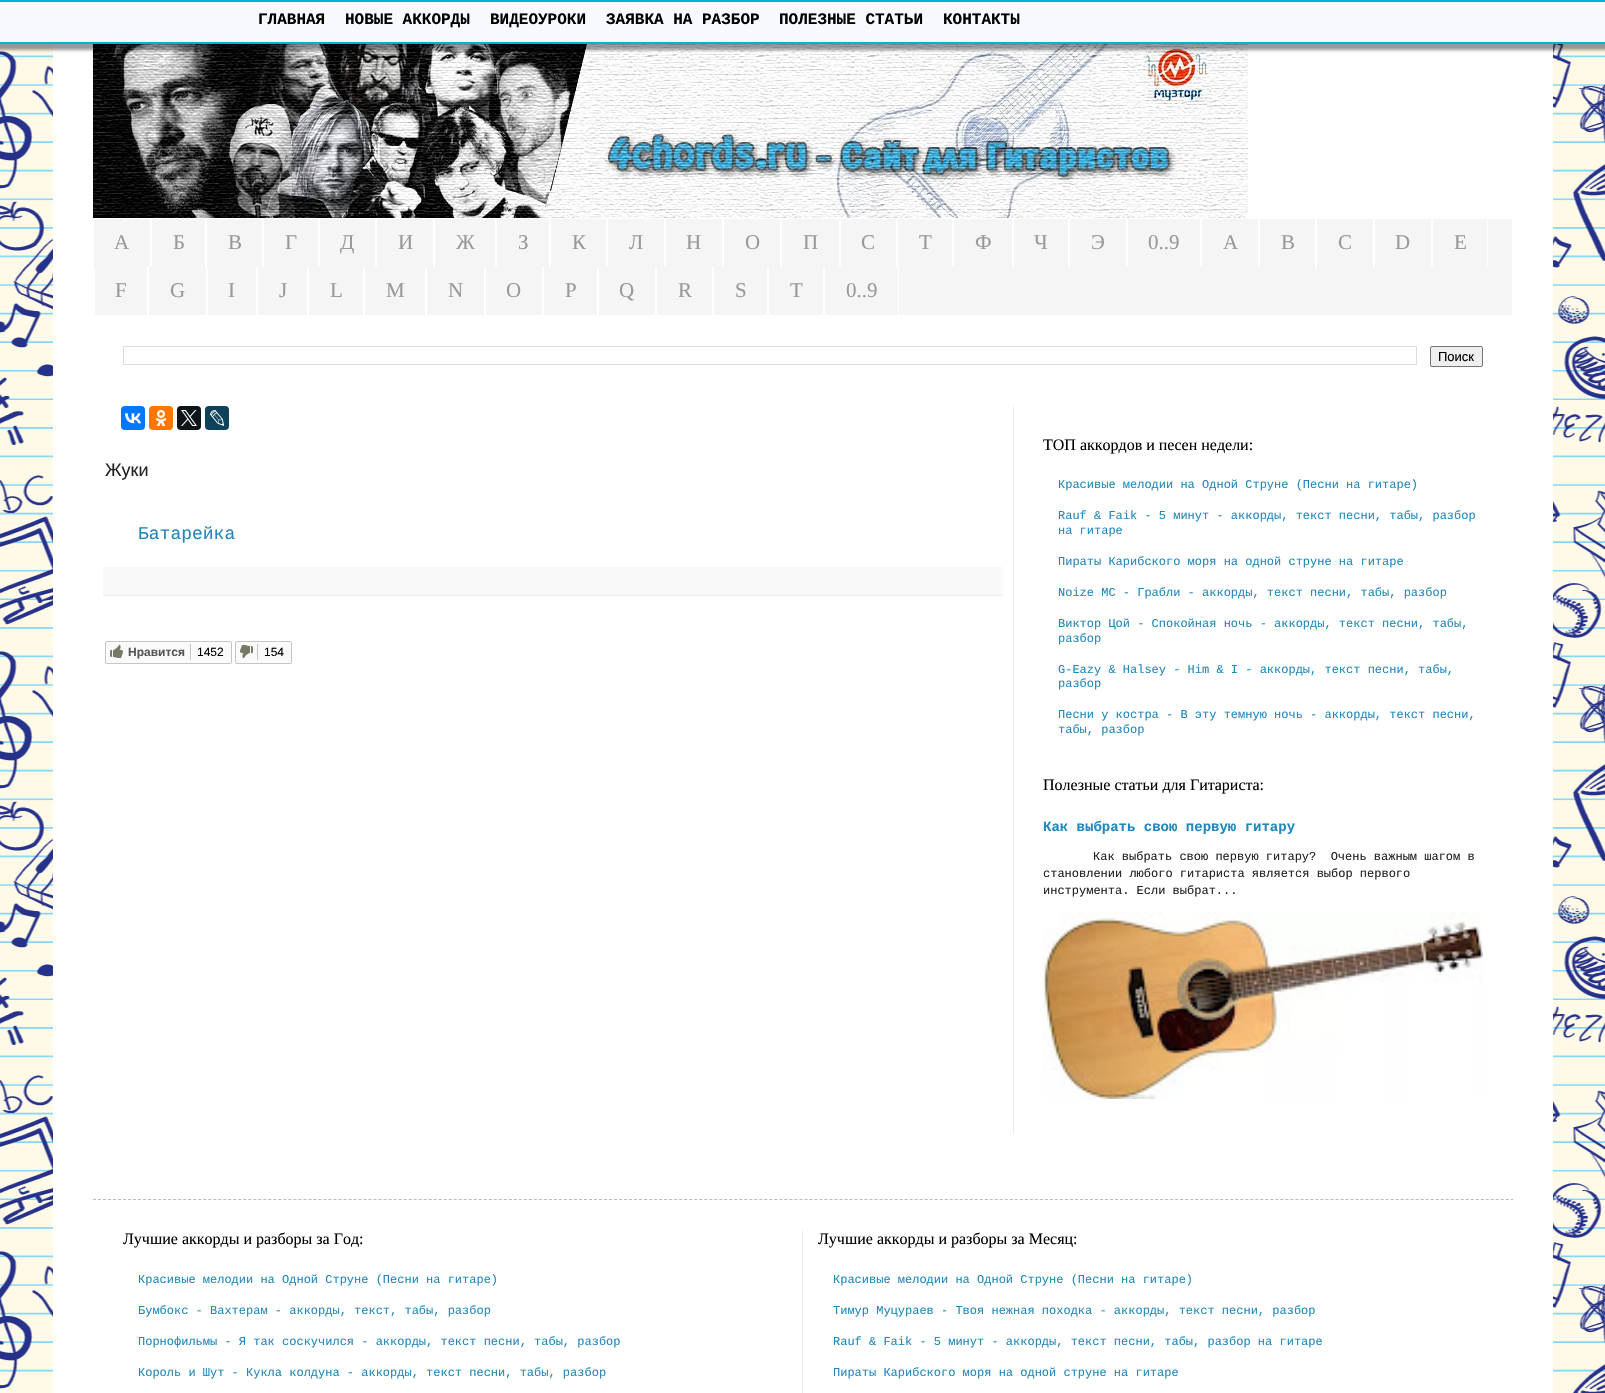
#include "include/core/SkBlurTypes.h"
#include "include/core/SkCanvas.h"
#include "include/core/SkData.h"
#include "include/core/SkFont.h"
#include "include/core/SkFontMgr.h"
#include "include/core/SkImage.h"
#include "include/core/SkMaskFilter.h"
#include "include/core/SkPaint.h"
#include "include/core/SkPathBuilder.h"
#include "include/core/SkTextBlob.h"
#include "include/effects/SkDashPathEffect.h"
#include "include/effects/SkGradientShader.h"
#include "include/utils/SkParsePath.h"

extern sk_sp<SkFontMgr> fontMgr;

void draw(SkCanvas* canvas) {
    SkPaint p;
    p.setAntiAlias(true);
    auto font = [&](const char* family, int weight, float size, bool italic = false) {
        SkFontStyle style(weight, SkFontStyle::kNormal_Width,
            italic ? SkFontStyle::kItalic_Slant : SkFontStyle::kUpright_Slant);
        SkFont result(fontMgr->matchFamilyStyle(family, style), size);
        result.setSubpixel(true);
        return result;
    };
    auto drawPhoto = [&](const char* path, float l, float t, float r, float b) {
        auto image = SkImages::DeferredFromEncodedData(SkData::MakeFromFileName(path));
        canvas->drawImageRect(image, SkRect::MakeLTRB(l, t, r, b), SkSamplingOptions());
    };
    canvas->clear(0xFFFFFFFF);
    drawPhoto("media/1.png", 0, 44, 1605, 1393);
    p.setColor(0xFFFFFFFF);
    canvas->drawRect(SkRect::MakeLTRB(53, 44, 1553, 1393), p);
    p.setStyle(SkPaint::kStroke_Style);
    p.setStrokeWidth(1);
    p.setColor(0xFFBBBBBB);
    p.setPathEffect(SkDashPathEffect::Make({{3, 2.01f}}, 0));
    canvas->drawPath(SkPathBuilder().moveTo(93, 1199.5f).lineTo(1513, 1199.5f).detach(), p);
    p.setPathEffect(nullptr);
    p.setStyle(SkPaint::kFill_Style);
    p.setColor(0xFFEEEEEE);
    canvas->drawRect(SkRect::MakeLTRB(802, 1230, 803, 1393), p);
    drawPhoto("media/2.png", 93, 44, 1248, 218);
    p.setColor(0x66000000);
    p.setMaskFilter(SkMaskFilter::MakeBlur(kNormal_SkBlurStyle, 1.5f));
    canvas->drawRect(SkRect::MakeLTRB(-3, 0, 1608, 50), p);
    p.setMaskFilter(nullptr);
    {
        const struct { float l, t, r, b; SkColor color; } items[] = {
            {0, 2, 1605, 42, 0xFFF8F8FF},
            {0, 0, 1605, 2, 0xFF03B4CC},
            {0, 42, 1605, 44, 0xFF03B4CC},
        };
        for (auto [l, t, r, b, color] : items) {
            p.setColor(color);
            canvas->drawRect(SkRect::MakeLTRB(l, t, r, b), p);
        }
    }
    auto font1 = font("Liberation Mono", 700, 16);
    p.setColor(0xFF000000);
    {
        const struct { const char* s; float x, y; } items[] = {
            {"ГЛАВНАЯ", 258, 24},
            {"НОВЫЕ АККОРДЫ", 345, 24},
            {"ВИДЕОУРОКИ", 490, 24},
            {"ЗАЯВКА НА РАЗБОР", 606, 24},
            {"ПОЛЕЗНЫЕ СТАТЬИ", 779, 24},
            {"КОНТАКТЫ", 943, 24},
        };
        for (auto [s, x, y] : items) {
            canvas->drawString(s, x, y, font1, p);
        }
    }
    auto font2 = font("Liberation Serif", 400, 16);
    canvas->drawString("Лучшие аккорды и разборы за Месяц:", 818, 1244, font2, p);
    auto font3 = font("Liberation Mono", 400, 12);
    p.setColor(0xFF2288BB);
    {
        const struct { const char* s; float x, y; } items[] = {
            {"Красивые мелодии на Одной Струне (Песни на гитаре)", 833, 1283},
            {"Тимур Муцураев - Твоя нежная походка - аккорды, текст песни, разбор", 833, 1314},
            {"Rauf & Faik - 5 минут - аккорды, текст песни, табы, разбор на гитаре", 833, 1345},
            {"Пираты Карибского моря на одной струне на гитаре", 833, 1376},
        };
        for (auto [s, x, y] : items) {
            canvas->drawString(s, x, y, font3, p);
        }
    }
    p.setColor(0xFF000000);
    canvas->drawString("Лучшие аккорды и разборы за Год:", 123, 1244, font2, p);
    p.setColor(0xFF2288BB);
    {
        const struct { const char* s; float x, y; } items[] = {
            {"Красивые мелодии на Одной Струне (Песни на гитаре)", 138, 1283},
            {"Бумбокс - Вахтерам - аккорды, текст, табы, разбор", 138, 1314},
            {"Порнофильмы - Я так соскучился - аккорды, текст песни, табы, разбор", 138, 1345},
            {"Король и Шут - Кукла колдуна - аккорды, текст песни, табы, разбор", 138, 1376},
        };
        for (auto [s, x, y] : items) {
            canvas->drawString(s, x, y, font3, p);
        }
    }
    p.setColor(0xFFF5F5F5);
    canvas->drawRect(SkRect::MakeLTRB(94, 219, 1512, 315), p);
    p.setColor(0xFFFFFFFF);
    canvas->drawRect(SkRect::MakeLTRB(150, 219, 152, 267), p);
    auto font4 = font("Liberation Serif", 400, 21);
    p.setColor(0xFF999999);
    canvas->drawString("А", 114, 249, font4, p);
    p.setColor(0xFFFFFFFF);
    canvas->drawRect(SkRect::MakeLTRB(205, 219, 207, 267), p);
    p.setColor(0xFF999999);
    canvas->drawString("Б", 173, 249, font4, p);
    p.setColor(0xFFFFFFFF);
    canvas->drawRect(SkRect::MakeLTRB(262, 219, 264, 267), p);
    p.setColor(0xFF999999);
    canvas->drawString("В", 228, 249, font4, p);
    p.setColor(0xFFFFFFFF);
    canvas->drawRect(SkRect::MakeLTRB(318, 219, 320, 267), p);
    p.setColor(0xFF999999);
    canvas->drawString("Г", 285, 249, font4, p);
    p.setColor(0xFFFFFFFF);
    canvas->drawRect(SkRect::MakeLTRB(375, 219, 377, 267), p);
    p.setColor(0xFF999999);
    canvas->drawString("Д", 340, 249, font4, p);
    p.setColor(0xFFFFFFFF);
    canvas->drawRect(SkRect::MakeLTRB(433, 219, 435, 267), p);
    p.setColor(0xFF999999);
    canvas->drawString("И", 398, 249, font4, p);
    p.setColor(0xFFFFFFFF);
    canvas->drawRect(SkRect::MakeLTRB(495, 219, 497, 267), p);
    p.setColor(0xFF999999);
    canvas->drawString("Ж", 456, 249, font4, p);
    p.setColor(0xFFFFFFFF);
    canvas->drawRect(SkRect::MakeLTRB(549, 219, 551, 267), p);
    p.setColor(0xFF999999);
    canvas->drawString("З", 518, 249, font4, p);
    p.setColor(0xFFFFFFFF);
    canvas->drawRect(SkRect::MakeLTRB(606, 219, 608, 267), p);
    p.setColor(0xFF999999);
    canvas->drawString("К", 572, 249, font4, p);
    p.setColor(0xFFFFFFFF);
    canvas->drawRect(SkRect::MakeLTRB(664, 219, 666, 267), p);
    p.setColor(0xFF999999);
    canvas->drawString("Л", 629, 249, font4, p);
    p.setColor(0xFFFFFFFF);
    canvas->drawRect(SkRect::MakeLTRB(722, 219, 724, 267), p);
    p.setColor(0xFF999999);
    canvas->drawString("Н", 686, 249, font4, p);
    p.setColor(0xFFFFFFFF);
    canvas->drawRect(SkRect::MakeLTRB(780, 219, 782, 267), p);
    p.setColor(0xFF999999);
    canvas->drawString("О", 745, 249, font4, p);
    p.setColor(0xFFFFFFFF);
    canvas->drawRect(SkRect::MakeLTRB(839, 219, 841, 267), p);
    p.setColor(0xFF999999);
    canvas->drawString("П", 803, 249, font4, p);
    p.setColor(0xFFFFFFFF);
    canvas->drawRect(SkRect::MakeLTRB(896, 219, 898, 267), p);
    p.setColor(0xFF999999);
    canvas->drawString("С", 861, 249, font4, p);
    p.setColor(0xFFFFFFFF);
    canvas->drawRect(SkRect::MakeLTRB(952, 219, 954, 267), p);
    p.setColor(0xFF999999);
    canvas->drawString("Т", 919, 249, font4, p);
    p.setColor(0xFFFFFFFF);
    canvas->drawRect(SkRect::MakeLTRB(1012, 219, 1014, 267), p);
    p.setColor(0xFF999999);
    canvas->drawString("Ф", 975, 249, font4, p);
    p.setColor(0xFFFFFFFF);
    canvas->drawRect(SkRect::MakeLTRB(1068, 219, 1070, 267), p);
    p.setColor(0xFF999999);
    canvas->drawString("Ч", 1034, 249, font4, p);
    p.setColor(0xFFFFFFFF);
    canvas->drawRect(SkRect::MakeLTRB(1126, 219, 1128, 267), p);
    p.setColor(0xFF999999);
    canvas->drawString("Э", 1091, 249, font4, p);
    p.setColor(0xFFFFFFFF);
    canvas->drawRect(SkRect::MakeLTRB(1200, 219, 1202, 267), p);
    p.setColor(0xFF999999);
    canvas->drawString("0..9", 1148, 249, font4, p);
    p.setColor(0xFFFFFFFF);
    canvas->drawRect(SkRect::MakeLTRB(1258, 219, 1260, 267), p);
    p.setColor(0xFF999999);
    canvas->drawString("A", 1223, 249, font4, p);
    p.setColor(0xFFFFFFFF);
    canvas->drawRect(SkRect::MakeLTRB(1315, 219, 1317, 267), p);
    p.setColor(0xFF999999);
    canvas->drawString("B", 1281, 249, font4, p);
    p.setColor(0xFFFFFFFF);
    canvas->drawRect(SkRect::MakeLTRB(1373, 219, 1375, 267), p);
    p.setColor(0xFF999999);
    canvas->drawString("C", 1338, 249, font4, p);
    p.setColor(0xFFFFFFFF);
    canvas->drawRect(SkRect::MakeLTRB(1431, 219, 1433, 267), p);
    p.setColor(0xFF999999);
    canvas->drawString("D", 1395, 249, font4, p);
    p.setColor(0xFFFFFFFF);
    canvas->drawRect(SkRect::MakeLTRB(1487, 219, 1488, 267), p);
    p.setColor(0xFF999999);
    canvas->drawString("E", 1454, 249, font4, p);
    p.setColor(0xFFFFFFFF);
    canvas->drawRect(SkRect::MakeLTRB(147, 267, 149, 315), p);
    canvas->drawRect(SkRect::MakeLTRB(94, 267, 95, 315), p);
    p.setColor(0xFF999999);
    canvas->drawString("F", 115, 297, font4, p);
    p.setColor(0xFFFFFFFF);
    canvas->drawRect(SkRect::MakeLTRB(206, 267, 208, 315), p);
    p.setColor(0xFF999999);
    canvas->drawString("G", 170, 297, font4, p);
    p.setColor(0xFFFFFFFF);
    canvas->drawRect(SkRect::MakeLTRB(256, 267, 258, 315), p);
    p.setColor(0xFF999999);
    canvas->drawString("I", 228, 297, font4, p);
    p.setColor(0xFFFFFFFF);
    canvas->drawRect(SkRect::MakeLTRB(307, 267, 309, 315), p);
    p.setColor(0xFF999999);
    canvas->drawString("J", 279, 297, font4, p);
    p.setColor(0xFFFFFFFF);
    canvas->drawRect(SkRect::MakeLTRB(363, 267, 365, 315), p);
    p.setColor(0xFF999999);
    canvas->drawString("L", 330, 297, font4, p);
    p.setColor(0xFFFFFFFF);
    canvas->drawRect(SkRect::MakeLTRB(425, 267, 427, 315), p);
    p.setColor(0xFF999999);
    canvas->drawString("M", 386, 297, font4, p);
    p.setColor(0xFFFFFFFF);
    canvas->drawRect(SkRect::MakeLTRB(484, 267, 486, 315), p);
    p.setColor(0xFF999999);
    canvas->drawString("N", 448, 297, font4, p);
    p.setColor(0xFFFFFFFF);
    canvas->drawRect(SkRect::MakeLTRB(542, 267, 544, 315), p);
    p.setColor(0xFF999999);
    canvas->drawString("O", 506, 297, font4, p);
    p.setColor(0xFFFFFFFF);
    canvas->drawRect(SkRect::MakeLTRB(597, 267, 599, 315), p);
    p.setColor(0xFF999999);
    canvas->drawString("P", 565, 297, font4, p);
    p.setColor(0xFFFFFFFF);
    canvas->drawRect(SkRect::MakeLTRB(655, 267, 657, 315), p);
    p.setColor(0xFF999999);
    canvas->drawString("Q", 619, 297, font4, p);
    p.setColor(0xFFFFFFFF);
    canvas->drawRect(SkRect::MakeLTRB(712, 267, 714, 315), p);
    p.setColor(0xFF999999);
    canvas->drawString("R", 678, 297, font4, p);
    p.setColor(0xFFFFFFFF);
    canvas->drawRect(SkRect::MakeLTRB(767, 267, 769, 315), p);
    p.setColor(0xFF999999);
    canvas->drawString("S", 735, 297, font4, p);
    p.setColor(0xFFFFFFFF);
    canvas->drawRect(SkRect::MakeLTRB(823, 267, 825, 315), p);
    p.setColor(0xFF999999);
    canvas->drawString("T", 790, 297, font4, p);
    p.setColor(0xFFFFFFFF);
    canvas->drawRect(SkRect::MakeLTRB(898, 267, 899, 315), p);
    p.setColor(0xFF999999);
    canvas->drawString("0..9", 846, 297, font4, p);
    p.setStyle(SkPaint::kStroke_Style);
    p.setColor(0xFFDDDDDD);
    canvas->drawRect(SkRect::MakeLTRB(123.5f, 346.5f, 1416.5f, 364.5f), p);
    p.setStyle(SkPaint::kFill_Style);
    p.setColor(0xFFEFEFEF);
    canvas->drawRoundRect(SkRect::MakeLTRB(1430.5f, 346.5f, 1482.5f, 366.5f), 1.5f, 1.5f, p);
    p.setStyle(SkPaint::kStroke_Style);
    p.setColor(0xFF767676);
    canvas->drawRoundRect(SkRect::MakeLTRB(1430.5f, 346.5f, 1482.5f, 366.5f), 1.5f, 1.5f, p);
    auto font5 = font("Liberation Sans", 400, 13);
    p.setStyle(SkPaint::kFill_Style);
    p.setColor(0xFF000000);
    canvas->drawString("Поиск", 1438, 361, font5, p);
    p.setColor(0xFFEEEEEE);
    canvas->drawRect(SkRect::MakeLTRB(1013, 406, 1014, 1134), p);
    p.setColor(0xFF0077FF);
    canvas->drawRoundRect(SkRect::MakeLTRB(121, 406, 145, 430), 4, 4, p);
    drawPhoto("media/3.png", 125, 413, 141, 424);
    p.setColor(0xFFFF7700);
    canvas->drawRoundRect(SkRect::MakeLTRB(149, 406, 173, 430), 4, 4, p);
    drawPhoto("media/4.png", 155, 410, 167, 426);
    p.setColor(0xFF0F1419);
    canvas->drawRoundRect(SkRect::MakeLTRB(177, 406, 201, 430), 4, 4, p);
    drawPhoto("media/5.png", 181, 410, 197, 426);
    p.setColor(0xFF0D425A);
    canvas->drawRoundRect(SkRect::MakeLTRB(205, 406, 229, 430), 4, 4, p);
    drawPhoto("media/6.png", 210, 410, 225, 426);
    auto font6 = font("Liberation Sans", 400, 18);
    p.setColor(0xFF222222);
    canvas->drawString("Жуки", 105, 476, font6, p);
    auto font7 = font("Liberation Mono", 400, 18);
    p.setColor(0xFF2288BB);
    canvas->drawString("Батарейка", 138, 539, font7, p);
    p.setColor(0xFFF9F9F9);
    canvas->drawRect(SkRect::MakeLTRB(103, 567, 1003, 595), p);
    p.setColor(0xFFEEEEEE);
    canvas->drawRect(SkRect::MakeLTRB(103, 595, 1003, 596), p);
    p.setColor(0xFFFAFAFA);
    canvas->drawRoundRect(SkRect::MakeLTRB(105.5f, 641.5f, 231.5f, 663.5f), 1.5f, 1.5f, p);
    p.setStyle(SkPaint::kStroke_Style);
    p.setColor(0xFFC6C6C6);
    canvas->drawRoundRect(SkRect::MakeLTRB(105.5f, 641.5f, 231.5f, 663.5f), 1.5f, 1.5f, p);
    drawPhoto("media/7.png", 110, 645, 123, 658);
    auto font8 = font("Liberation Sans", 700, 12);
    p.setStyle(SkPaint::kFill_Style);
    p.setColor(0xFF555555);
    canvas->drawString("Нравится", 128, 656, font8, p);
    p.setColor(0xFFC6C6C6);
    canvas->drawRect(SkRect::MakeLTRB(190, 644, 191, 660), p);
    auto font9 = font("Liberation Sans", 400, 12);
    p.setColor(0xFF000000);
    canvas->drawString("1452", 197, 656, font9, p);
    p.setColor(0xFFFAFAFA);
    canvas->drawRoundRect(SkRect::MakeLTRB(235.5f, 641.5f, 291.5f, 663.5f), 1.5f, 1.5f, p);
    p.setStyle(SkPaint::kStroke_Style);
    p.setColor(0xFFC6C6C6);
    canvas->drawRoundRect(SkRect::MakeLTRB(235.5f, 641.5f, 291.5f, 663.5f), 1.5f, 1.5f, p);
    drawPhoto("media/8.png", 240, 645, 253, 658);
    p.setStyle(SkPaint::kFill_Style);
    canvas->drawRect(SkRect::MakeLTRB(257, 644, 258, 660), p);
    p.setColor(0xFF000000);
    canvas->drawString("154", 264, 656, font9, p);
    canvas->drawString("ТОП аккордов и песен недели:", 1043, 450, font2, p);
    p.setColor(0xFF2288BB);
    {
        const struct { const char* s; float x, y; } items[] = {
            {"Красивые мелодии на Одной Струне (Песни на гитаре)", 1058, 488},
            {"Rauf & Faik - 5 минут - аккорды, текст песни, табы, разбор", 1058, 519},
            {"на гитаре", 1058, 534},
            {"Пираты Карибского моря на одной струне на гитаре", 1058, 565},
            {"Noize MC - Грабли - аккорды, текст песни, табы, разбор", 1058, 596},
            {"Виктор Цой - Спокойная ночь - аккорды, текст песни, табы,", 1058, 627},
            {"разбор", 1058, 642},
            {"G-Eazy & Halsey - Him & I - аккорды, текст песни, табы,", 1058, 673},
            {"разбор", 1058, 687},
            {"Песни у костра - В эту темную ночь - аккорды, текст песни,", 1058, 718},
            {"табы, разбор", 1058, 733},
        };
        for (auto [s, x, y] : items) {
            canvas->drawString(s, x, y, font3, p);
        }
    }
    p.setColor(0xFF000000);
    canvas->drawString("Полезные статьи для Гитариста:", 1043, 790, font2, p);
    auto font10 = font("Liberation Mono", 700, 14);
    p.setColor(0xFF2288BB);
    canvas->drawString("Как выбрать свою первую гитару", 1043, 831, font10, p);
    p.setColor(0xFF222222);
    {
        const struct { const char* s; float x, y; } items[] = {
            {"Как выбрать свою первую гитару?  Очень важным шагом в", 1093, 860},
            {"становлении любого гитариста является выбор первого", 1043, 877},
            {"инструмента. Если выбрат...", 1043, 894},
        };
        for (auto [s, x, y] : items) {
            canvas->drawString(s, x, y, font3, p);
        }
    }
    drawPhoto("media/9.png", 1043, 912, 1483, 1099);
}
